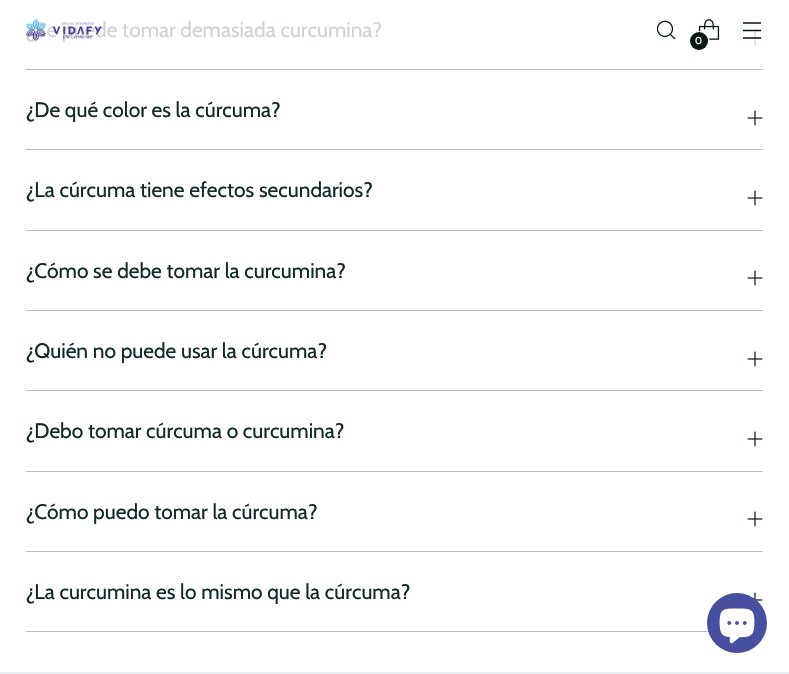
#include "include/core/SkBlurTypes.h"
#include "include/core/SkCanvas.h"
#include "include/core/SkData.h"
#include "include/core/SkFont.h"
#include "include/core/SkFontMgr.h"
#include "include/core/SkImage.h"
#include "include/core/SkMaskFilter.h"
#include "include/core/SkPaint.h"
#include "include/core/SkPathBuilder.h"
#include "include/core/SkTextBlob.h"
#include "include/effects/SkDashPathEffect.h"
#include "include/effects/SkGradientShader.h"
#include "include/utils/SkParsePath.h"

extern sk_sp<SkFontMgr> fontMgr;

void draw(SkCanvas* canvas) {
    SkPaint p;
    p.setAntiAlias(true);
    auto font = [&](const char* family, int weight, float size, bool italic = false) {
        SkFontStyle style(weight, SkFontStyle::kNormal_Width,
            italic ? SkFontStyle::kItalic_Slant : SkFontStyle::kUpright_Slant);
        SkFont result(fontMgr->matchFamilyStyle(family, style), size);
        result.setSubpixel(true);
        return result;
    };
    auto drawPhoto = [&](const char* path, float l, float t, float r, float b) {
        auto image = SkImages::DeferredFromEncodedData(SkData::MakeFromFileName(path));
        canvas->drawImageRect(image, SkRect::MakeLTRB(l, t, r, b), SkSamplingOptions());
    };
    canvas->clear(0xFFFFFFFF);
    p.setColor(0xFFBDBFBF);
    canvas->drawRect(SkRect::MakeLTRB(26, 69, 763, 70), p);
    auto font1 = font("Cabin", 400, 20.9f);
    p.setColor(0xFFCFD5D4);
    canvas->drawString("¿Se puede tomar demasiada curcumina?", 26, 37, font1, p);
    drawPhoto("media/1.png", 747, 31, 763, 46);
    p.setColor(0xFFBDBFBF);
    canvas->drawRect(SkRect::MakeLTRB(26, 149, 763, 150), p);
    p.setColor(0xFF102B26);
    canvas->drawString("¿De qué color es la cúrcuma?", 26, 117, font1, p);
    drawPhoto("media/2.png", 747, 110, 763, 126);
    p.setColor(0xFFBDBFBF);
    canvas->drawRect(SkRect::MakeLTRB(26, 230, 763, 231), p);
    p.setColor(0xFF102B26);
    canvas->drawString("¿La cúrcuma tiene efectos secundarios?", 26, 197, font1, p);
    drawPhoto("media/2.png", 747, 190, 763, 206);
    p.setColor(0xFFBDBFBF);
    canvas->drawRect(SkRect::MakeLTRB(26, 310, 763, 311), p);
    p.setColor(0xFF102B26);
    canvas->drawString("¿Cómo se debe tomar la curcumina?", 26, 278, font1, p);
    drawPhoto("media/2.png", 747, 270, 763, 286);
    p.setColor(0xFFBDBFBF);
    canvas->drawRect(SkRect::MakeLTRB(26, 390, 763, 391), p);
    p.setColor(0xFF102B26);
    canvas->drawString("¿Quién no puede usar la cúrcuma?", 26, 358, font1, p);
    drawPhoto("media/2.png", 747, 351, 763, 367);
    p.setColor(0xFFBDBFBF);
    canvas->drawRect(SkRect::MakeLTRB(26, 471, 763, 472), p);
    p.setColor(0xFF102B26);
    canvas->drawString("¿Debo tomar cúrcuma o curcumina?", 26, 438, font1, p);
    drawPhoto("media/2.png", 747, 431, 763, 447);
    p.setColor(0xFFBDBFBF);
    canvas->drawRect(SkRect::MakeLTRB(26, 551, 763, 552), p);
    p.setColor(0xFF102B26);
    canvas->drawString("¿Cómo puedo tomar la cúrcuma?", 26, 519, font1, p);
    drawPhoto("media/2.png", 747, 511, 763, 527);
    p.setColor(0xFFBDBFBF);
    canvas->drawRect(SkRect::MakeLTRB(26, 631, 709, 632), p);
    p.setColor(0xFF102B26);
    canvas->drawString("¿La curcumina es lo mismo que la cúrcuma?", 26, 599, font1, p);
    drawPhoto("media/3.png", 754, 592, 763, 601);
    drawPhoto("media/4.png", 26, 19, 102, 41);
    drawPhoto("media/5.png", 656, 20, 676, 40);
    p.setStyle(SkPaint::kStroke_Style);
    p.setStrokeWidth(1.3f);
    p.setColor(0xFF031612);
    canvas->drawPath(SkPathBuilder().moveTo(743, 30.5f).lineTo(761, 30.5f).moveTo(743, 23).lineTo(761, 23).moveTo(743, 38).lineTo(761, 38).detach(), p);
    drawPhoto("media/6.png", 698, 19, 720, 40);
    p.setStrokeWidth(2);
    p.setColor(0xFFFFFFFF);
    canvas->drawCircle(699.5f, 41.5f, 9.5f, p);
    p.setStyle(SkPaint::kFill_Style);
    p.setColor(0xFF031612);
    canvas->drawCircle(699, 41, 9, p);
    auto font2 = font("Cabin", 400, 10);
    p.setColor(0xFFFFFFFF);
    canvas->drawString("0", 695, 44, font2, p);
    p.setColor(0xFFEBF0F2);
    canvas->drawRect(SkRect::MakeLTRB(0, 672, 789, 674), p);
    p.setStyle(SkPaint::kStroke_Style);
    p.setStrokeWidth(1.2f);
    p.setColor(0xFF102B26);
    canvas->drawPath(SkPathBuilder().moveTo(760, 641.5f).lineTo(753.5f, 635).lineTo(747, 641.5f).detach(), p);
    p.setStyle(SkPaint::kFill_Style);
    p.setColor(0xFF4750A0);
    canvas->drawCircle(737, 623, 30, p);
    drawPhoto("media/7.png", 719, 608, 755, 644);
}
